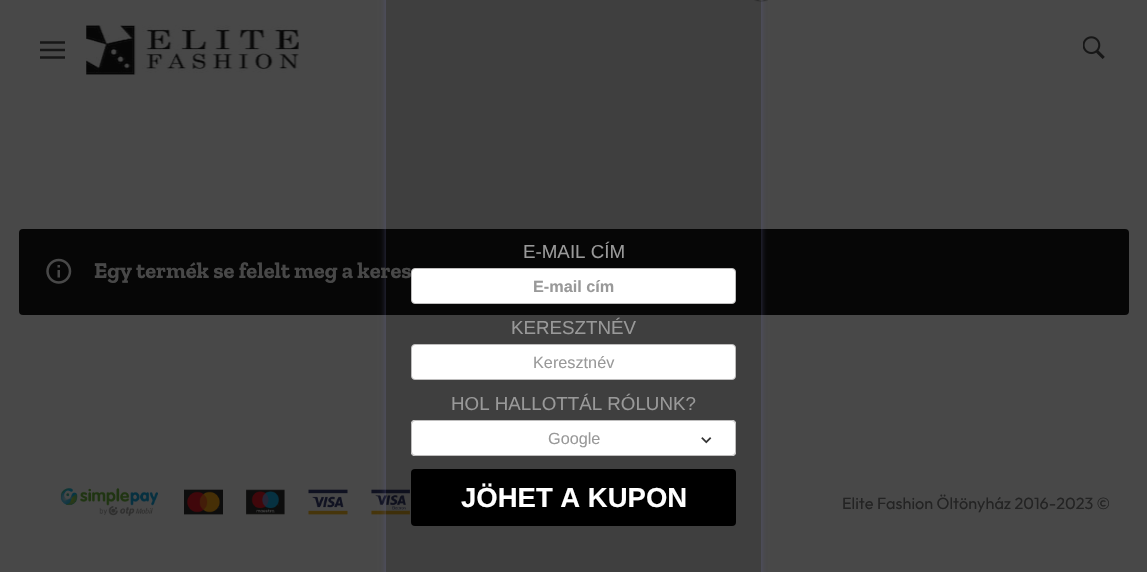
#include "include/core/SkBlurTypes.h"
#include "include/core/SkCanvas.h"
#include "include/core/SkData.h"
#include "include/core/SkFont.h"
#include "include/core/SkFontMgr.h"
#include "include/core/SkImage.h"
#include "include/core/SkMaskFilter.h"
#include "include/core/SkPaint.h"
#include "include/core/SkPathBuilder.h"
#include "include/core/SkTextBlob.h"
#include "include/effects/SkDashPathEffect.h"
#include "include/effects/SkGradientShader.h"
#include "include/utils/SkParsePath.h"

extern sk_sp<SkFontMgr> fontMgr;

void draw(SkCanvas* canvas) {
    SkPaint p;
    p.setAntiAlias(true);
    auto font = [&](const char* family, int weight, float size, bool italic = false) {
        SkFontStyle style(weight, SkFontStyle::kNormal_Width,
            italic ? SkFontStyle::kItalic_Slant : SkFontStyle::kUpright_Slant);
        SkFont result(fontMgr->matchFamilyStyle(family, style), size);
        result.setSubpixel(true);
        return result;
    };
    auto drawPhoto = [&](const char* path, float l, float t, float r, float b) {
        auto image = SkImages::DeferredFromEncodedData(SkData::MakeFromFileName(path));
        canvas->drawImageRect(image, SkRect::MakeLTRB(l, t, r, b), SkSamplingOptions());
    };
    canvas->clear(0xFF484848);
    p.setColor(0xFF060606);
    canvas->drawRoundRect(SkRect::MakeLTRB(19, 229, 1129, 315), 4, 4, p);
    drawPhoto("media/7.png", 60, 488, 410, 516);
    canvas->save();
    canvas->clipPath(SkPathBuilder(SkPathFillType::kEvenOdd).moveTo(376, 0).lineTo(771, 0).lineTo(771, 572).lineTo(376, 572).close().moveTo(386, -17).lineTo(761, -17).lineTo(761, 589).lineTo(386, 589).close().detach(), true);
    p.setColor(0x99565683);
    p.setMaskFilter(SkMaskFilter::MakeBlur(kNormal_SkBlurStyle, 3));
    canvas->drawRect(SkRect::MakeLTRB(386, -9, 761, 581), p);
    p.setMaskFilter(nullptr);
    canvas->restore();
    p.setColor(0x1F000000);
    canvas->drawRect(SkRect::MakeLTRB(386, 0, 761, 572), p);
    drawPhoto("media/1.png", 754, 0, 768, 2);
    auto font1 = font("Liberation Sans", 400, 18.75f);
    p.setColor(0xFF999999);
    canvas->drawString("E-MAIL CÍM", 523, 258, font1, p);
    p.setColor(0xFFFFFFFF);
    canvas->drawRoundRect(SkRect::MakeLTRB(411.5f, 268.5f, 735.5f, 303.5f), 3.5f, 3.5f, p);
    p.setStyle(SkPaint::kStroke_Style);
    p.setStrokeWidth(1);
    p.setColor(0xFFBFBEBE);
    canvas->drawRoundRect(SkRect::MakeLTRB(411.5f, 268.5f, 735.5f, 303.5f), 3.5f, 3.5f, p);
    auto font2 = font("Liberation Sans", 700, 16.25f);
    p.setStyle(SkPaint::kFill_Style);
    p.setColor(0xFF999999);
    canvas->drawString("E-mail cím", 533, 292, font2, p);
    canvas->drawString("KERESZTNÉV", 511, 334, font1, p);
    p.setColor(0xFFFFFFFF);
    canvas->drawRoundRect(SkRect::MakeLTRB(411.5f, 344.5f, 735.5f, 379.5f), 3.5f, 3.5f, p);
    p.setStyle(SkPaint::kStroke_Style);
    p.setColor(0xFFBFBEBE);
    canvas->drawRoundRect(SkRect::MakeLTRB(411.5f, 344.5f, 735.5f, 379.5f), 3.5f, 3.5f, p);
    auto font3 = font("Liberation Sans", 400, 16.25f);
    p.setStyle(SkPaint::kFill_Style);
    p.setColor(0xFF999999);
    canvas->drawString("Keresztnév", 533, 368, font3, p);
    canvas->drawString("HOL HALLOTTÁL RÓLUNK?", 451, 410, font1, p);
    p.setColor(0xFFFFFFFF);
    canvas->drawRoundRect(SkRect::MakeLTRB(411, 420, 736, 456), 4, 4, p);
    drawPhoto("media/2.png", 701, 437, 712, 444);
    p.setStyle(SkPaint::kStroke_Style);
    p.setColor(0xFFBFBEBE);
    canvas->drawRoundRect(SkRect::MakeLTRB(411.5f, 420.5f, 735.5f, 455.5f), 3.5f, 3.5f, p);
    p.setStyle(SkPaint::kFill_Style);
    p.setColor(0xFF999999);
    canvas->drawString("Google", 548, 444, font3, p);
    p.setColor(0xFF000000);
    canvas->drawRoundRect(SkRect::MakeLTRB(411, 469, 736, 526), 4, 4, p);
    auto font4 = font("Liberation Sans", 700, 27.5f);
    p.setColor(0xFFFFFFFF);
    canvas->drawString("JÖHET A KUPON", 461, 507, font4, p);
    drawPhoto("media/3.png", 40, 41, 65, 59);
    drawPhoto("media/4.png", 86, 25, 299, 75);
    drawPhoto("media/5.png", 1083, 36, 1105, 59);
    drawPhoto("media/6.png", 46, 258, 72, 284);
    auto font5 = font("Zilla Slab", 700, 22.5f);
    p.setColor(0xFF484848);
    canvas->drawString("Egy termék se felelt meg a keres", 94, 278, font5, p);
    auto font6 = font("Outfit", 400, 16.25f);
    p.setColor(0xFF232323);
    canvas->drawString("Elite Fashion Öltönyház 2016-2023 ©", 842, 509, font6, p);
}
